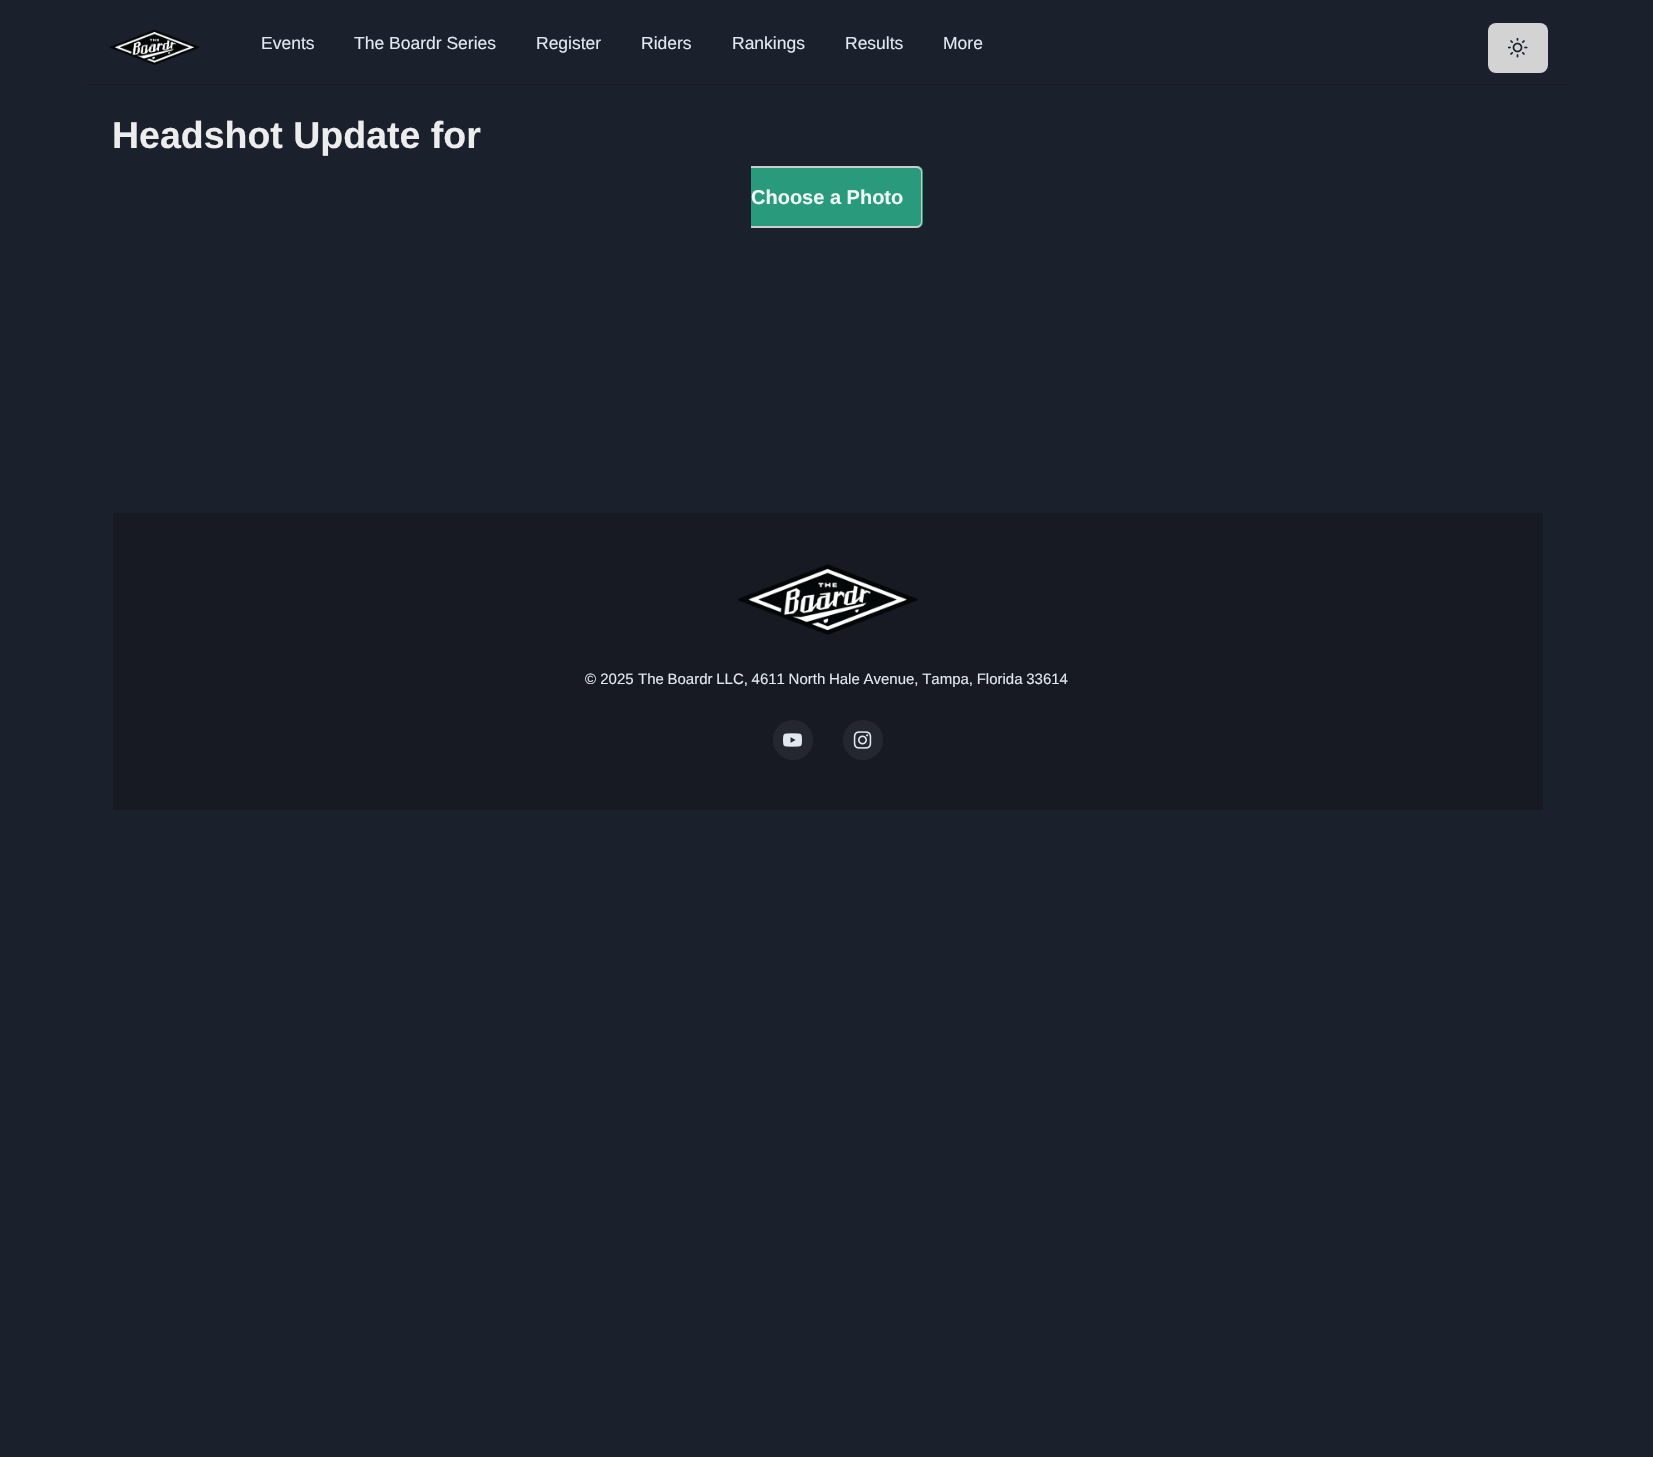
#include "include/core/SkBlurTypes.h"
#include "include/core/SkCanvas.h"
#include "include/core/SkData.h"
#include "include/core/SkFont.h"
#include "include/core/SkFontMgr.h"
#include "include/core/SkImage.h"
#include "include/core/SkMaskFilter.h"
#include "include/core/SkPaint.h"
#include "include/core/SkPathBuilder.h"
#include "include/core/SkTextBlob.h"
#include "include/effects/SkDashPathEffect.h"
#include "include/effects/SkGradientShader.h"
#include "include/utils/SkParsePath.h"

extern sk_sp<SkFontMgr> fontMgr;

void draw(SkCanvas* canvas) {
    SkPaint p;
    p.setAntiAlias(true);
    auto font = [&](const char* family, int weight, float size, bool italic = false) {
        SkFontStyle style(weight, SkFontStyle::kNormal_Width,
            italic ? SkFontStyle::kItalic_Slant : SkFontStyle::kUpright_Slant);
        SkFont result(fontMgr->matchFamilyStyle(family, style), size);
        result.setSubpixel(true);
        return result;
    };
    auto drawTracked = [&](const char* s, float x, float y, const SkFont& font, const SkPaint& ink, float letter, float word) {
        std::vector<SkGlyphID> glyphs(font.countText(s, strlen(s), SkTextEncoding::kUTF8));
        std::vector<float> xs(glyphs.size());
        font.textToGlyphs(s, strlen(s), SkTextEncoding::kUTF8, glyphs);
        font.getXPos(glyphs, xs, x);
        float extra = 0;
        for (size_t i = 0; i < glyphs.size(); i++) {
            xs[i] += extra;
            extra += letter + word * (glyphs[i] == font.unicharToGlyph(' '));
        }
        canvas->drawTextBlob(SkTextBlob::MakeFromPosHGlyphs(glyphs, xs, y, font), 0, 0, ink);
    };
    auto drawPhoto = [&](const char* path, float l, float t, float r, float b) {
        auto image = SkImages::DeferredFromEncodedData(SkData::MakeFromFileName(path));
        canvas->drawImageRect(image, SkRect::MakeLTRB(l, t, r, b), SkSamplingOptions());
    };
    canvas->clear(0xFF1A202C);
    p.setColor(0xFF171923);
    canvas->drawRect(SkRect::MakeLTRB(88, 84, 1568, 85), p);
    drawPhoto("media/1.png", 109, 29, 200, 66);
    auto font1 = font("Liberation Sans", 400, 17.5f);
    p.setColor(0xFFE2E8F0);
    {
        const struct { const char* s; float x, y; } items[] = {
            {"Events", 261, 49},
            {"The Boardr Series", 354, 49},
            {"Register", 536, 49},
            {"Riders", 641, 49},
            {"Rankings", 732, 49},
            {"Results", 845, 49},
            {"More", 943, 49},
        };
        for (auto [s, x, y] : items) {
            canvas->drawString(s, x, y, font1, p);
        }
    }
    p.setColor(0xFFD3D3D3);
    canvas->drawRoundRect(SkRect::MakeLTRB(1488, 23, 1548, 73), 8, 8, p);
    drawPhoto("media/2.png", 1508, 38, 1528, 58);
    auto font2 = font("Liberation Sans", 700, 37.5f);
    p.setColor(0xFFEDEDEE);
    canvas->drawString("Headshot Update for", 112, 148, font2, p);
    p.setColor(0xFF2A9A7C);
    canvas->drawPath(SkPathBuilder().moveTo(751, 166).lineTo(917, 166).cubicTo(920.5f, 166, 923, 168.5f, 923, 172).lineTo(923, 222).cubicTo(923, 225.5f, 920.5f, 228, 917, 228).lineTo(751, 228).close().detach(), p);
    p.setColor(0xFFCCCCCC);
    canvas->drawPath(SkPathBuilder(SkPathFillType::kEvenOdd).moveTo(751, 166).lineTo(916, 166).cubicTo(920, 166, 922, 169, 922, 172).lineTo(922, 221).cubicTo(922, 225, 920, 228, 916, 228).lineTo(751, 228).close().moveTo(751, 168).lineTo(916, 168).cubicTo(919, 168, 921, 170, 921, 172).lineTo(921, 221).cubicTo(921, 224, 919, 226, 916, 226).lineTo(751, 226).close().detach(), p);
    auto font3 = font("Liberation Sans", 700, 20);
    p.setColor(0xFFEEF7F5);
    canvas->drawString("Choose a Photo", 751, 204, font3, p);
    p.setColor(0xFF171923);
    canvas->drawRect(SkRect::MakeLTRB(113, 513, 1543, 810), p);
    drawPhoto("media/3.png", 738, 564, 918, 635);
    auto font4 = font("Liberation Sans", 400, 15);
    p.setColor(0xFFE2E8F0);
    canvas->drawString("© 2025", 585, 684, font4, p);
    drawTracked("The Boardr LLC, 4611 North Hale Avenue, Tampa, Florida 33614", 638, 684, font4, p, 0, -0.5f);
    p.setColor(0xFF252730);
    canvas->drawCircle(793, 740, 20, p);
    drawPhoto("media/4.png", 783, 733, 802, 747);
    canvas->drawCircle(863, 740, 20, p);
    drawPhoto("media/5.png", 853, 731, 872, 749);
}
